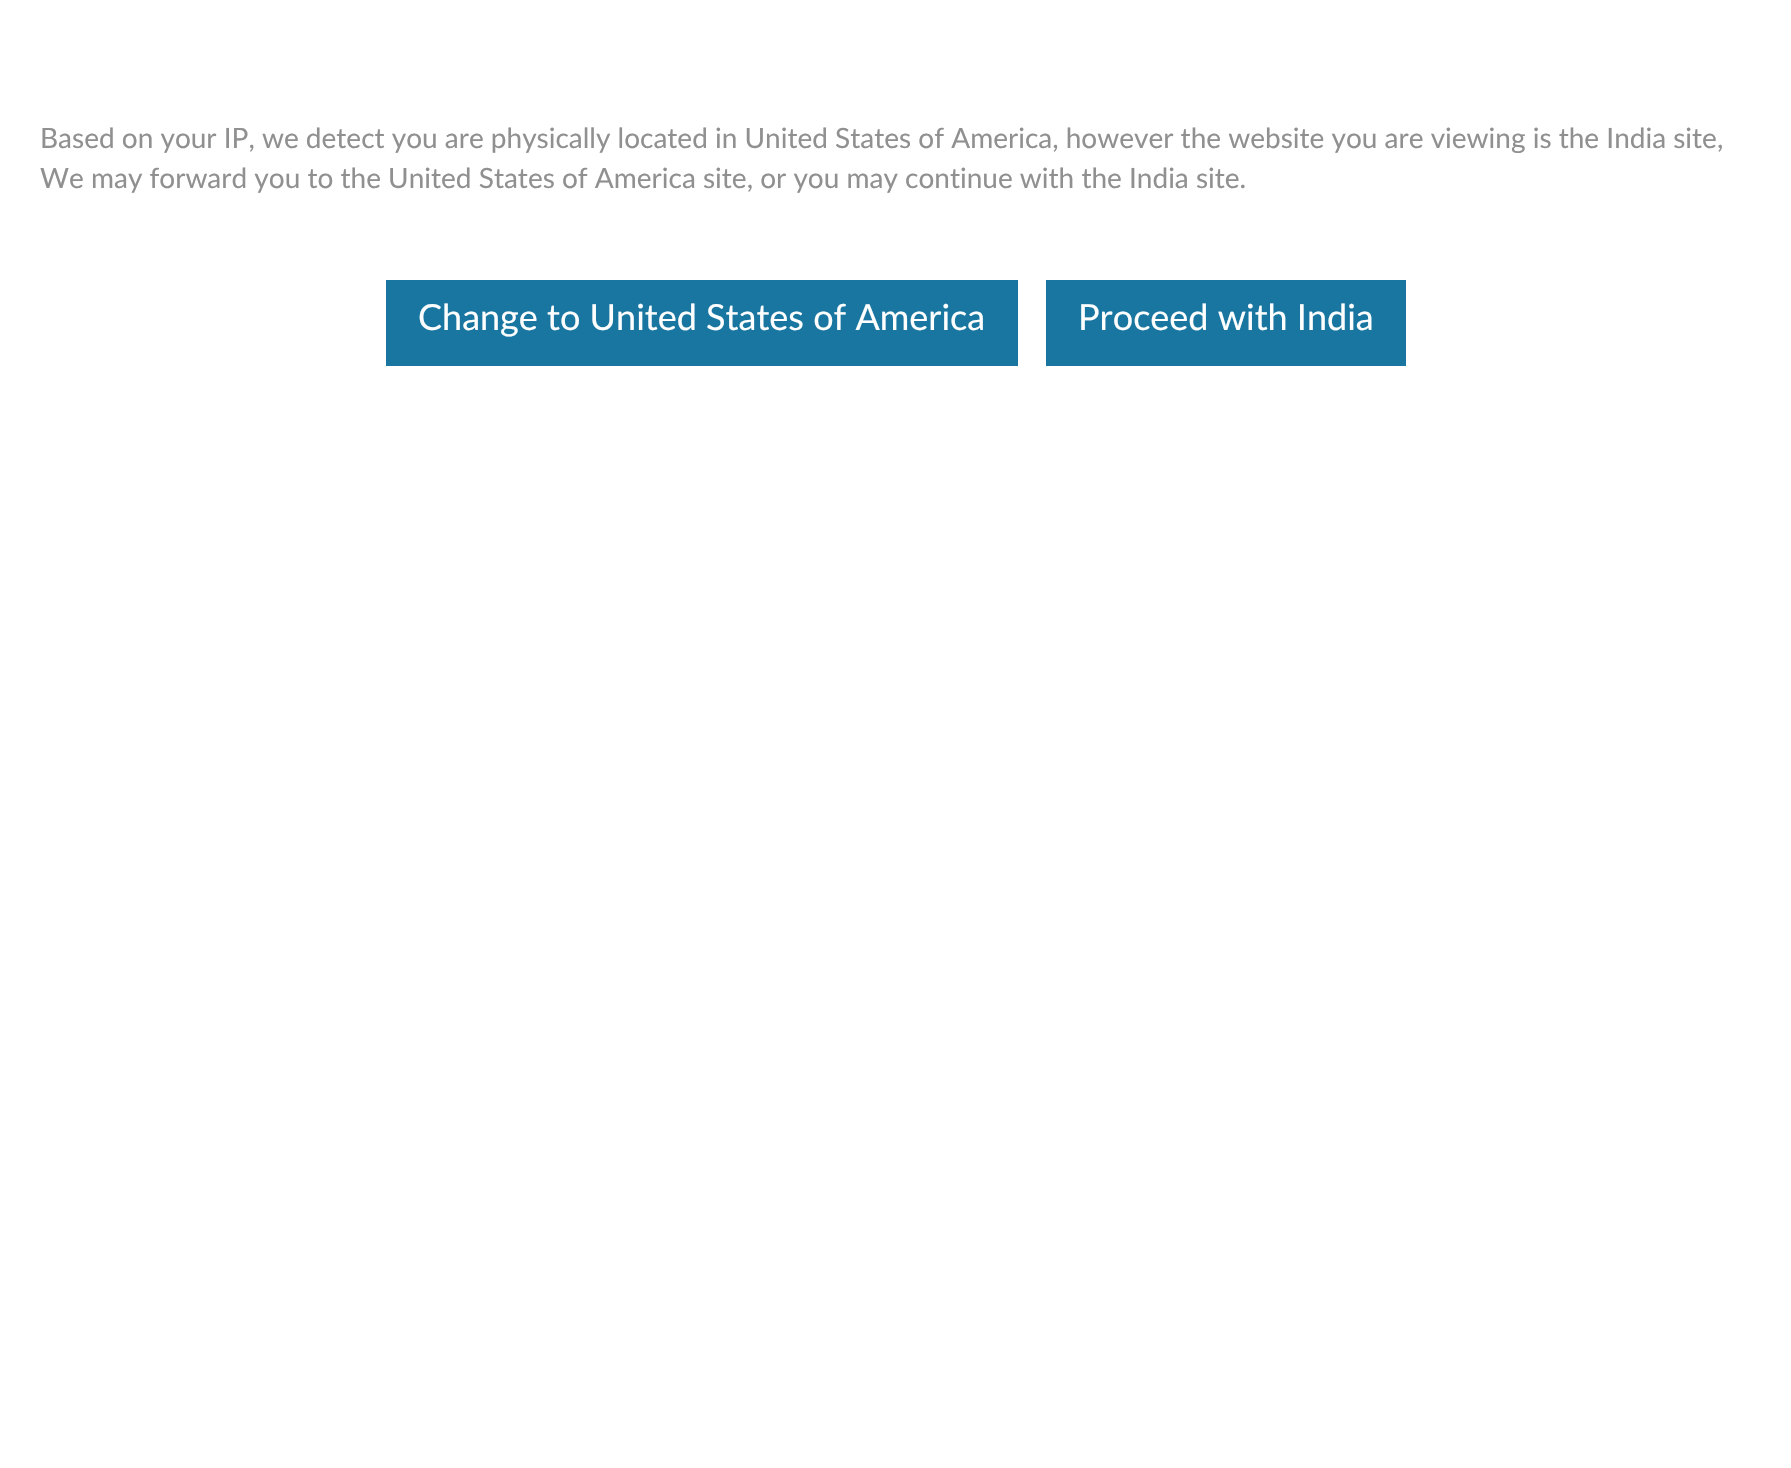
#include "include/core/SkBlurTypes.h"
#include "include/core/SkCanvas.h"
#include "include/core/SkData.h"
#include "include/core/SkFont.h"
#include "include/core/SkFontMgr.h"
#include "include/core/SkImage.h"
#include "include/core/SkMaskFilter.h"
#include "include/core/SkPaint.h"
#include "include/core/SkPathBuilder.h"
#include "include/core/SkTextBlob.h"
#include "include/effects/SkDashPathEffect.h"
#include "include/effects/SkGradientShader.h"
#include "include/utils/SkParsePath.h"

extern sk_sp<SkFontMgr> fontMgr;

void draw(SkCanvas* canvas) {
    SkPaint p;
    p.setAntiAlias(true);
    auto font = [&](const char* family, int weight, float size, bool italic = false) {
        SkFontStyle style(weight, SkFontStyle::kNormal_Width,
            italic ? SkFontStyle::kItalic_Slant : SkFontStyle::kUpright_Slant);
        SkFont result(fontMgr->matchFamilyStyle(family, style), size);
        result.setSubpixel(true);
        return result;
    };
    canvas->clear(0xFFFFFFFF);
    auto font1 = font("Lato", 400, 28);
    p.setColor(0xFF909090);
    canvas->drawString("Based on your IP, we detect you are physically located in United States of America, however the website you are viewing is the India site,", 40, 148, font1, p);
    canvas->drawString("We may forward you to the United States of America site, or you may continue with the India site.", 40, 188, font1, p);
    p.setColor(0xFF1976A1);
    canvas->drawRect(SkRect::MakeLTRB(386, 280, 1018, 366), p);
    auto font2 = font("Lato", 400, 36);
    p.setColor(0xFFFFFFFF);
    canvas->drawString("Change to United States of America", 418, 330, font2, p);
    p.setColor(0xFF1976A1);
    canvas->drawRect(SkRect::MakeLTRB(1046, 280, 1406, 366), p);
    p.setColor(0xFFFFFFFF);
    canvas->drawString("Proceed with India", 1078, 330, font2, p);
}
